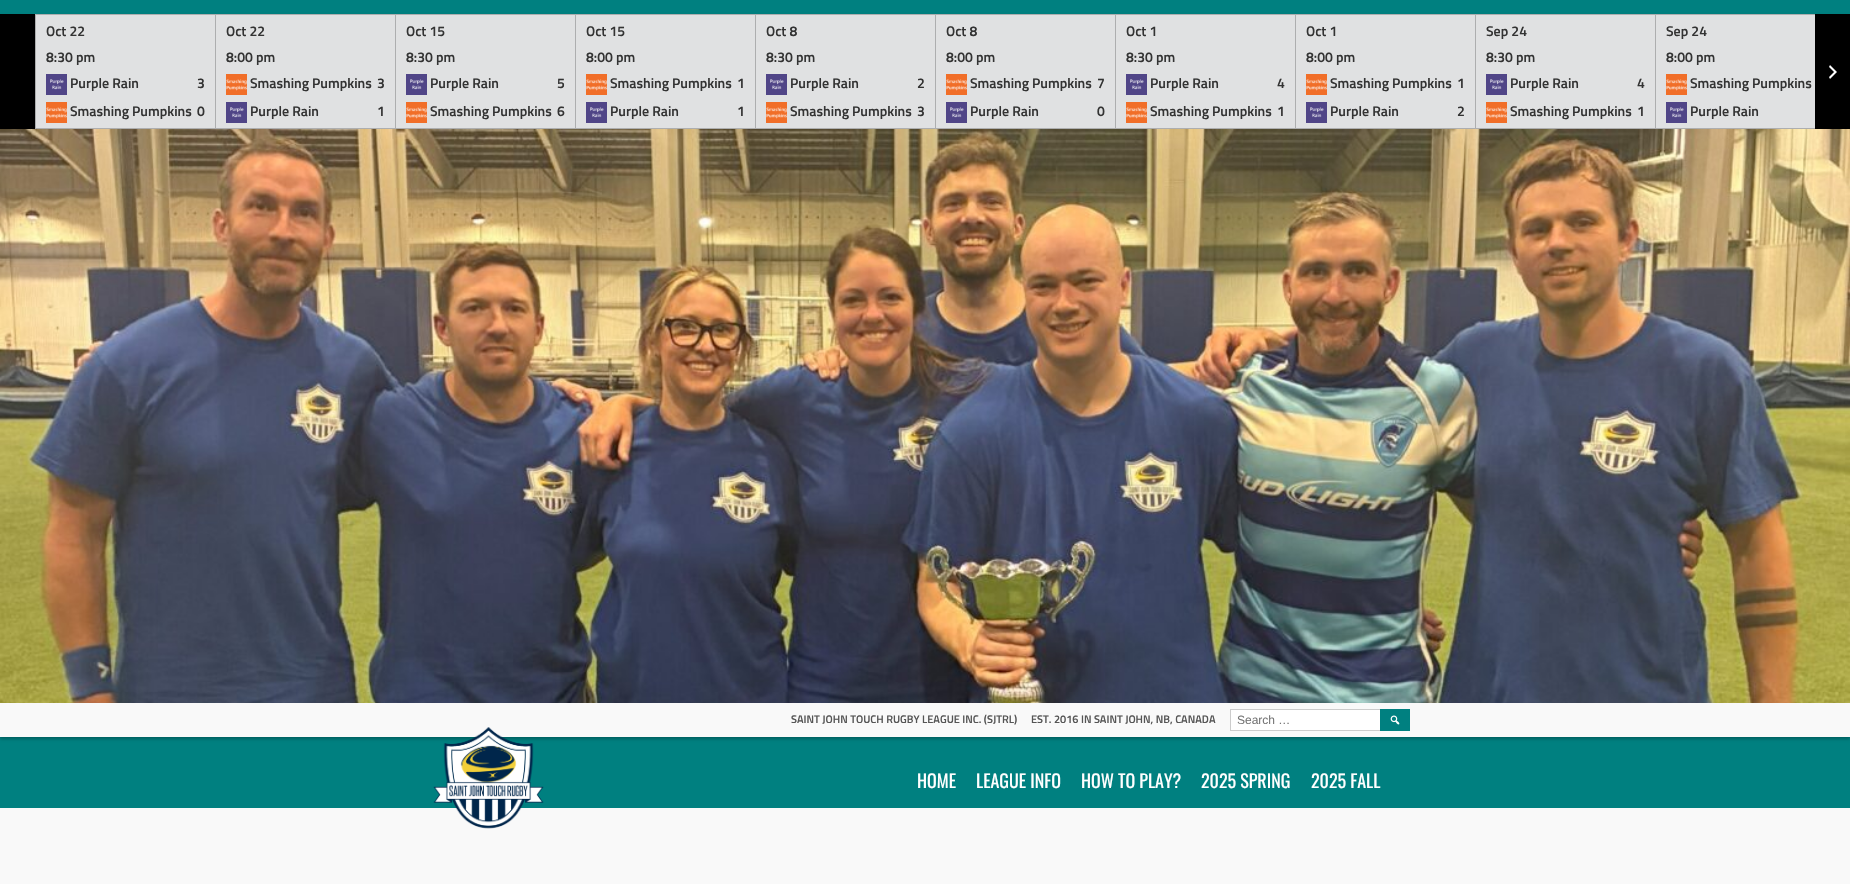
#include "include/core/SkBlurTypes.h"
#include "include/core/SkCanvas.h"
#include "include/core/SkData.h"
#include "include/core/SkFont.h"
#include "include/core/SkFontMgr.h"
#include "include/core/SkImage.h"
#include "include/core/SkMaskFilter.h"
#include "include/core/SkPaint.h"
#include "include/core/SkPathBuilder.h"
#include "include/core/SkTextBlob.h"
#include "include/effects/SkDashPathEffect.h"
#include "include/effects/SkGradientShader.h"
#include "include/utils/SkParsePath.h"

extern sk_sp<SkFontMgr> fontMgr;

void draw(SkCanvas* canvas) {
    SkPaint p;
    p.setAntiAlias(true);
    auto font = [&](const char* family, int weight, float size, bool italic = false) {
        SkFontStyle style(weight, SkFontStyle::kNormal_Width,
            italic ? SkFontStyle::kItalic_Slant : SkFontStyle::kUpright_Slant);
        SkFont result(fontMgr->matchFamilyStyle(family, style), size);
        result.setSubpixel(true);
        return result;
    };
    auto drawPhoto = [&](const char* path, float l, float t, float r, float b) {
        auto image = SkImages::DeferredFromEncodedData(SkData::MakeFromFileName(path));
        canvas->drawImageRect(image, SkRect::MakeLTRB(l, t, r, b), SkSamplingOptions());
    };
    canvas->clear(0xFFF9F9F9);
    p.setColor(0xFF008080);
    canvas->drawRect(SkRect::MakeLTRB(0, 0, 1850, 808), p);
    p.setColor(0x40000000);
    p.setMaskFilter(SkMaskFilter::MakeBlur(kNormal_SkBlurStyle, 1.5f));
    canvas->drawRect(SkRect::MakeLTRB(0, 16, 1850, 739), p);
    p.setMaskFilter(nullptr);
    {
        const struct { float l, t, r, b; SkColor color; } items[] = {
            {0, 703, 1850, 737, 0xFFF9F9F9},
            {0, 14, 1850, 129, 0xFF000000},
            {35, 14, 1815, 15, 0xFFADAEAF},
            {35, 128, 1815, 129, 0xFFADAEAF},
            {35, 14, 36, 129, 0xFFADAEAF},
            {36, 15, 1815, 128, 0xFFE0E1E2},
        };
        for (auto [l, t, r, b, color] : items) {
            p.setColor(color);
            canvas->drawRect(SkRect::MakeLTRB(l, t, r, b), p);
        }
    }
    auto font1 = font("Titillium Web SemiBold", 600, 14);
    p.setColor(0xFF333333);
    canvas->drawString("Oct 22", 46, 36, font1, p);
    canvas->drawString("8:30 pm", 46, 62, font1, p);
    drawPhoto("media/1.png", 46, 74, 67, 95);
    canvas->drawString("Purple Rain", 70, 88, font1, p);
    canvas->drawString("3", 197, 88, font1, p);
    drawPhoto("media/2.png", 46, 102, 67, 123);
    canvas->drawString("Smashing Pumpkins", 70, 116, font1, p);
    canvas->drawString("0", 197, 116, font1, p);
    p.setColor(0xFFADAEAF);
    canvas->drawRect(SkRect::MakeLTRB(215, 14, 216, 129), p);
    p.setColor(0xFF333333);
    canvas->drawString("Oct 22", 226, 36, font1, p);
    canvas->drawString("8:00 pm", 226, 62, font1, p);
    drawPhoto("media/3.png", 226, 74, 247, 95);
    canvas->drawString("Smashing Pumpkins", 250, 88, font1, p);
    canvas->drawString("3", 377, 88, font1, p);
    drawPhoto("media/4.png", 226, 102, 247, 123);
    canvas->drawString("Purple Rain", 250, 116, font1, p);
    canvas->drawString("1", 377, 116, font1, p);
    p.setColor(0xFFADAEAF);
    canvas->drawRect(SkRect::MakeLTRB(395, 14, 396, 129), p);
    p.setColor(0xFF333333);
    canvas->drawString("Oct 15", 406, 36, font1, p);
    canvas->drawString("8:30 pm", 406, 62, font1, p);
    drawPhoto("media/5.png", 406, 74, 427, 95);
    canvas->drawString("Purple Rain", 430, 88, font1, p);
    canvas->drawString("5", 557, 88, font1, p);
    drawPhoto("media/6.png", 406, 102, 427, 123);
    canvas->drawString("Smashing Pumpkins", 430, 116, font1, p);
    canvas->drawString("6", 557, 116, font1, p);
    p.setColor(0xFFADAEAF);
    canvas->drawRect(SkRect::MakeLTRB(575, 14, 576, 129), p);
    p.setColor(0xFF333333);
    canvas->drawString("Oct 15", 586, 36, font1, p);
    canvas->drawString("8:00 pm", 586, 62, font1, p);
    drawPhoto("media/3.png", 586, 74, 607, 95);
    canvas->drawString("Smashing Pumpkins", 610, 88, font1, p);
    canvas->drawString("1", 737, 88, font1, p);
    drawPhoto("media/4.png", 586, 102, 607, 123);
    canvas->drawString("Purple Rain", 610, 116, font1, p);
    canvas->drawString("1", 737, 116, font1, p);
    p.setColor(0xFFADAEAF);
    canvas->drawRect(SkRect::MakeLTRB(755, 14, 756, 129), p);
    p.setColor(0xFF333333);
    canvas->drawString("Oct 8", 766, 36, font1, p);
    canvas->drawString("8:30 pm", 766, 62, font1, p);
    drawPhoto("media/1.png", 766, 74, 787, 95);
    canvas->drawString("Purple Rain", 790, 88, font1, p);
    canvas->drawString("2", 917, 88, font1, p);
    drawPhoto("media/2.png", 766, 102, 787, 123);
    canvas->drawString("Smashing Pumpkins", 790, 116, font1, p);
    canvas->drawString("3", 917, 116, font1, p);
    p.setColor(0xFFADAEAF);
    canvas->drawRect(SkRect::MakeLTRB(935, 14, 936, 129), p);
    p.setColor(0xFF333333);
    canvas->drawString("Oct 8", 946, 36, font1, p);
    canvas->drawString("8:00 pm", 946, 62, font1, p);
    drawPhoto("media/3.png", 946, 74, 967, 95);
    canvas->drawString("Smashing Pumpkins", 970, 88, font1, p);
    canvas->drawString("7", 1097, 88, font1, p);
    drawPhoto("media/4.png", 946, 102, 967, 123);
    canvas->drawString("Purple Rain", 970, 116, font1, p);
    canvas->drawString("0", 1097, 116, font1, p);
    p.setColor(0xFFADAEAF);
    canvas->drawRect(SkRect::MakeLTRB(1115, 14, 1116, 129), p);
    p.setColor(0xFF333333);
    canvas->drawString("Oct 1", 1126, 36, font1, p);
    canvas->drawString("8:30 pm", 1126, 62, font1, p);
    drawPhoto("media/5.png", 1126, 74, 1147, 95);
    canvas->drawString("Purple Rain", 1150, 88, font1, p);
    canvas->drawString("4", 1277, 88, font1, p);
    drawPhoto("media/6.png", 1126, 102, 1147, 123);
    canvas->drawString("Smashing Pumpkins", 1150, 116, font1, p);
    canvas->drawString("1", 1277, 116, font1, p);
    p.setColor(0xFFADAEAF);
    canvas->drawRect(SkRect::MakeLTRB(1295, 14, 1296, 129), p);
    p.setColor(0xFF333333);
    canvas->drawString("Oct 1", 1306, 36, font1, p);
    canvas->drawString("8:00 pm", 1306, 62, font1, p);
    drawPhoto("media/7.png", 1306, 74, 1327, 95);
    canvas->drawString("Smashing Pumpkins", 1330, 88, font1, p);
    canvas->drawString("1", 1457, 88, font1, p);
    drawPhoto("media/8.png", 1306, 102, 1327, 123);
    canvas->drawString("Purple Rain", 1330, 116, font1, p);
    canvas->drawString("2", 1457, 116, font1, p);
    p.setColor(0xFFADAEAF);
    canvas->drawRect(SkRect::MakeLTRB(1475, 14, 1476, 129), p);
    p.setColor(0xFF333333);
    canvas->drawString("Sep 24", 1486, 36, font1, p);
    canvas->drawString("8:30 pm", 1486, 62, font1, p);
    drawPhoto("media/5.png", 1486, 74, 1507, 95);
    canvas->drawString("Purple Rain", 1510, 88, font1, p);
    canvas->drawString("4", 1637, 88, font1, p);
    drawPhoto("media/6.png", 1486, 102, 1507, 123);
    canvas->drawString("Smashing Pumpkins", 1510, 116, font1, p);
    canvas->drawString("1", 1637, 116, font1, p);
    p.setColor(0xFFADAEAF);
    canvas->drawRect(SkRect::MakeLTRB(1655, 14, 1656, 129), p);
    p.setColor(0xFF333333);
    canvas->drawString("Sep 24", 1666, 36, font1, p);
    canvas->drawString("8:00 pm", 1666, 62, font1, p);
    drawPhoto("media/7.png", 1666, 74, 1687, 95);
    canvas->drawString("Smashing Pumpkins", 1690, 88, font1, p);
    drawPhoto("media/8.png", 1666, 102, 1687, 123);
    canvas->drawString("Purple Rain", 1690, 116, font1, p);
    drawPhoto("media/9.png", 1829, 65, 1837, 79);
    drawPhoto("media/10.png", 0, 129, 1850, 703);
    auto font2 = font("Titillium Web SemiBold", 600, 11);
    p.setColor(0xFF555555);
    canvas->drawString("SAINT JOHN TOUCH RUGBY LEAGUE INC. (SJTRL)", 791, 723, font2, p);
    canvas->drawString("EST. 2016 IN SAINT JOHN, NB, CANADA", 1031, 723, font2, p);
    drawPhoto("media/11.png", 433, 727, 544, 829);
    {
        const struct { float l, t, r, b; SkColor color; } items[] = {
            {1231, 710, 1380, 730, 0xFFFFFFFF},
            {1230, 709, 1380, 710, 0xFFCCCCCC},
            {1230, 730, 1380, 731, 0xFFCCCCCC},
            {1230, 709, 1231, 731, 0xFFCCCCCC},
        };
        for (auto [l, t, r, b, color] : items) {
            p.setColor(color);
            canvas->drawRect(SkRect::MakeLTRB(l, t, r, b), p);
        }
    }
    auto font3 = font("Liberation Sans", 400, 12);
    p.setColor(0xFF757575);
    canvas->drawString("Search …", 1237, 724, font3, p);
    p.setColor(0xFF008080);
    canvas->drawRect(SkRect::MakeLTRB(1380, 709, 1410, 731), p);
    drawPhoto("media/12.png", 1390, 715, 1400, 725);
    auto font4 = font("Oswald", 400, 18);
    p.setColor(0xFFFFFFFF);
    {
        const struct { const char* s; float x, y; } items[] = {
            {"HOME", 917, 788},
            {"LEAGUE INFO", 976, 788},
            {"HOW TO PLAY?", 1081, 788},
            {"2025 SPRING", 1201, 788},
            {"2025 FALL", 1311, 788},
        };
        for (auto [s, x, y] : items) {
            canvas->drawString(s, x, y, font4, p);
        }
    }
}
